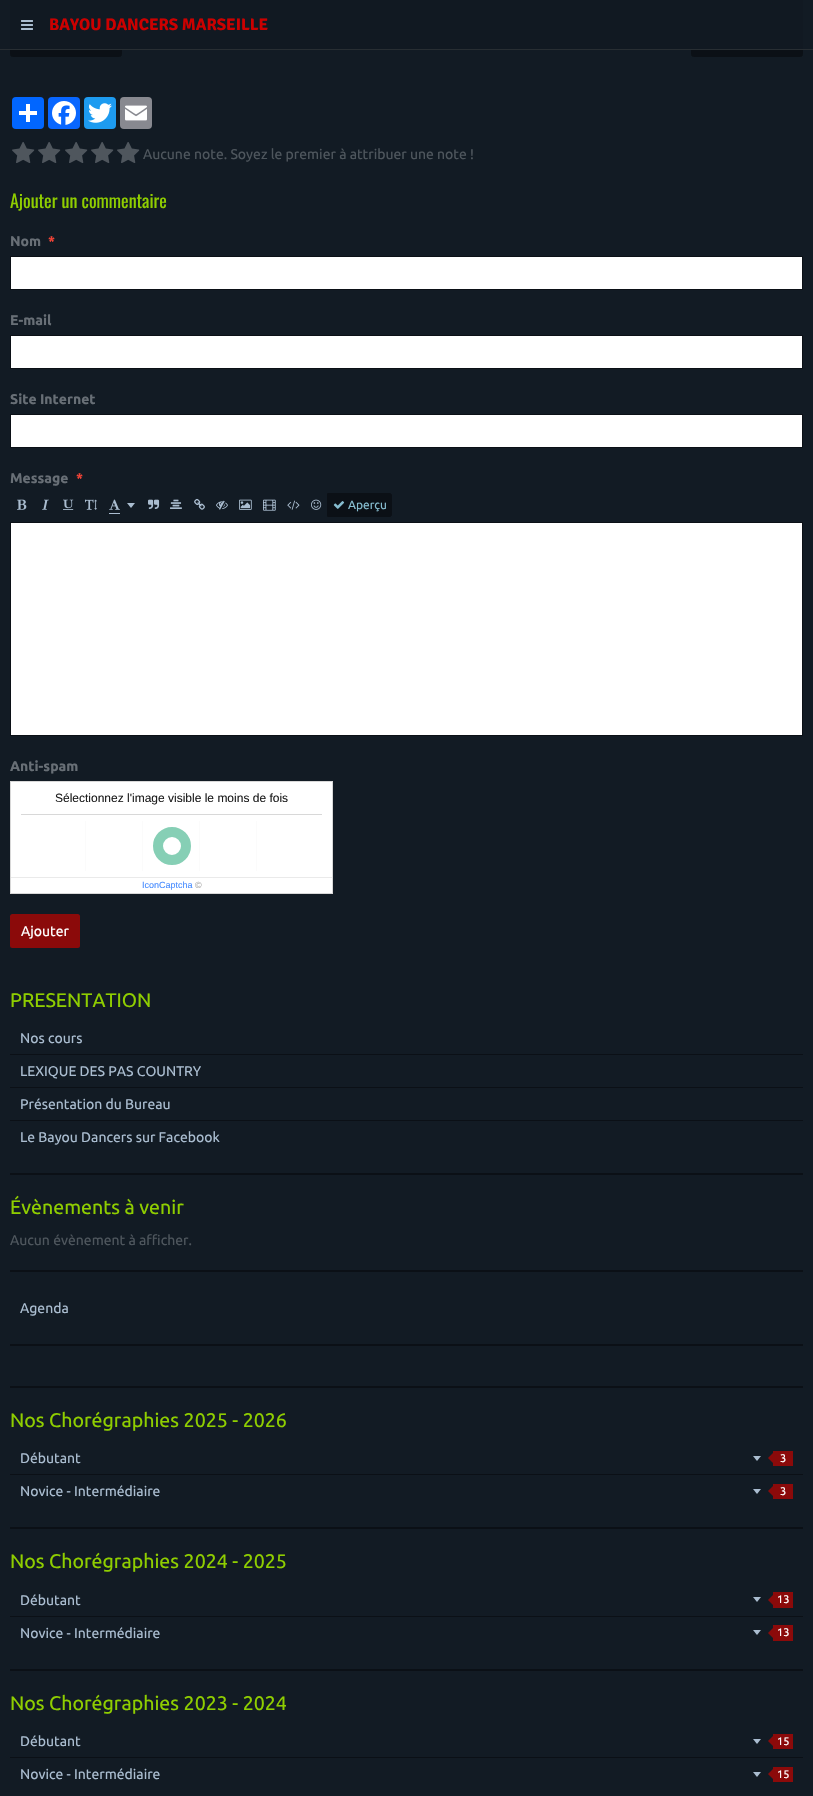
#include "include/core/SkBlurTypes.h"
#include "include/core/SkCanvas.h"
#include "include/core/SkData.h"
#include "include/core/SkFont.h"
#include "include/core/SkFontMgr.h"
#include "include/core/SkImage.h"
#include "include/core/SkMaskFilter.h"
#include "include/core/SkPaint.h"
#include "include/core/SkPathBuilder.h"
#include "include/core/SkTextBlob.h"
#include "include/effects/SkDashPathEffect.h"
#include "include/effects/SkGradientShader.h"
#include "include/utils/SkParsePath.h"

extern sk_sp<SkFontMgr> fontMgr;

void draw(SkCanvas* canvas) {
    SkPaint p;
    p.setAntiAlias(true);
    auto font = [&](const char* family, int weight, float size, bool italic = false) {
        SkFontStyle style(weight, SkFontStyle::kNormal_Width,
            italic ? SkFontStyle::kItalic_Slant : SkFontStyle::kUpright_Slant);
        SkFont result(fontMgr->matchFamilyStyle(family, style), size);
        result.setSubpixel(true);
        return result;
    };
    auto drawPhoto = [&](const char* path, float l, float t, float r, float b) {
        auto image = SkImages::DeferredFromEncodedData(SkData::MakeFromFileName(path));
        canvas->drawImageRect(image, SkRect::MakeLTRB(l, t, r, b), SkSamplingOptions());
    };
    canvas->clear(0xFF121B24);
    p.setColor(0xFF0B1016);
    canvas->drawRoundRect(SkRect::MakeLTRB(10.5f, -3.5f, 121.5f, 56.5f), 2, 2, p);
    p.setStyle(SkPaint::kStroke_Style);
    p.setStrokeWidth(1);
    canvas->drawRoundRect(SkRect::MakeLTRB(10.5f, -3.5f, 121.5f, 56.5f), 2, 2, p);
    p.setStyle(SkPaint::kFill_Style);
    canvas->drawRoundRect(SkRect::MakeLTRB(691.5f, -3.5f, 802.5f, 56.5f), 2, 2, p);
    p.setStyle(SkPaint::kStroke_Style);
    canvas->drawRoundRect(SkRect::MakeLTRB(691.5f, -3.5f, 802.5f, 56.5f), 2, 2, p);
    p.setStyle(SkPaint::kFill_Style);
    p.setColor(0xFF111922);
    canvas->drawRect(SkRect::MakeLTRB(10, 0, 803, 49), p);
    p.setColor(0xFF282E33);
    canvas->drawRect(SkRect::MakeLTRB(0, 49, 813, 50), p);
    drawPhoto("media/1.png", 21, 20, 33, 30);
    auto font1 = font("Signika", 700, 16.75f);
    p.setColor(0xFFCC0000);
    canvas->drawString("BAYOU DANCERS MARSEILLE", 49, 30, font1, p);
    p.setColor(0xFF0166FF);
    canvas->drawRoundRect(SkRect::MakeLTRB(12, 97, 44, 129), 4, 4, p);
    p.setColor(0xFFFFFFFF);
    canvas->drawRect(SkRect::MakeLTRB(26, 104, 30, 122), p);
    canvas->drawRect(SkRect::MakeLTRB(19, 111, 37, 115), p);
    p.setColor(0xFF0866FF);
    canvas->drawRoundRect(SkRect::MakeLTRB(48, 97, 80, 129), 4, 4, p);
    drawPhoto("media/2.png", 52, 101, 76, 125);
    p.setColor(0xFF1D9BF0);
    canvas->drawRoundRect(SkRect::MakeLTRB(84, 97, 116, 129), 4, 4, p);
    drawPhoto("media/3.png", 88, 103, 112, 123);
    p.setColor(0xFF888990);
    canvas->drawRoundRect(SkRect::MakeLTRB(120, 97, 152, 129), 4, 4, p);
    drawPhoto("media/4.png", 125, 105, 147, 121);
    drawPhoto("media/5.png", 12, 142, 35, 163);
    drawPhoto("media/5.png", 38, 142, 61, 163);
    drawPhoto("media/5.png", 65, 142, 88, 163);
    drawPhoto("media/5.png", 91, 142, 114, 163);
    drawPhoto("media/5.png", 117, 142, 140, 163);
    auto font2 = font("Ubuntu", 400, 14);
    p.setColor(0xFF4E565D);
    canvas->drawString("Aucune note. Soyez le premier à attribuer une note !", 143, 159, font2, p);
    auto font3 = font("Oswald", 400, 18);
    p.setColor(0xFF8FCE00);
    canvas->drawString("Ajouter un commentaire", 10, 208, font3, p);
    auto font4 = font("Ubuntu", 700, 14);
    p.setColor(0xFF686F76);
    canvas->drawString("Nom", 10, 246, font4, p);
    p.setColor(0xFFF44336);
    canvas->drawString("*", 48, 246, font4, p);
    p.setColor(0xFFFFFFFF);
    canvas->drawRect(SkRect::MakeLTRB(10.5f, 256.5f, 802.5f, 289.5f), p);
    p.setStyle(SkPaint::kStroke_Style);
    p.setColor(0xFF0B1016);
    canvas->drawRect(SkRect::MakeLTRB(10.5f, 256.5f, 802.5f, 289.5f), p);
    p.setStyle(SkPaint::kFill_Style);
    p.setColor(0xFF686F76);
    canvas->drawString("E-mail", 10, 325, font4, p);
    p.setColor(0xFFFFFFFF);
    canvas->drawRect(SkRect::MakeLTRB(10.5f, 335.5f, 802.5f, 368.5f), p);
    p.setStyle(SkPaint::kStroke_Style);
    p.setColor(0xFF0B1016);
    canvas->drawRect(SkRect::MakeLTRB(10.5f, 335.5f, 802.5f, 368.5f), p);
    p.setStyle(SkPaint::kFill_Style);
    p.setColor(0xFF686F76);
    canvas->drawString("Site Internet", 10, 404, font4, p);
    p.setColor(0xFFFFFFFF);
    canvas->drawRect(SkRect::MakeLTRB(10.5f, 414.5f, 802.5f, 447.5f), p);
    p.setStyle(SkPaint::kStroke_Style);
    p.setColor(0xFF0B1016);
    canvas->drawRect(SkRect::MakeLTRB(10.5f, 414.5f, 802.5f, 447.5f), p);
    p.setStyle(SkPaint::kFill_Style);
    p.setColor(0xFF686F76);
    canvas->drawString("Message", 10, 483, font4, p);
    p.setColor(0xFFF44336);
    canvas->drawString("*", 76, 483, font4, p);
    drawPhoto("media/6.png", 17, 499, 27, 510);
    drawPhoto("media/7.png", 42, 499, 49, 510);
    drawPhoto("media/8.png", 63, 499, 74, 510);
    drawPhoto("media/9.png", 85, 499, 97, 510);
    drawPhoto("media/10.png", 109, 499, 120, 510);
    p.setColor(0xFFAABDD0);
    canvas->drawRect(SkRect::MakeLTRB(109, 513, 120, 514), p);
    canvas->drawPath(SkPathBuilder().moveTo(127, 503).lineTo(135, 503).lineTo(131, 508).close().detach(), p);
    drawPhoto("media/11.png", 148, 499, 160, 509);
    drawPhoto("media/12.png", 170, 499, 182, 509);
    drawPhoto("media/13.png", 194, 498, 205, 510);
    drawPhoto("media/14.png", 216, 500, 228, 510);
    drawPhoto("media/15.png", 239, 499, 252, 510);
    drawPhoto("media/16.png", 263, 499, 276, 511);
    drawPhoto("media/17.png", 287, 500, 300, 510);
    drawPhoto("media/18.png", 311, 499, 322, 510);
    p.setColor(0xFF0B1016);
    canvas->drawPath(SkPathBuilder().moveTo(327.5f, 493.5f).lineTo(390, 493.5f).cubicTo(391, 493.5f, 391.5f, 494, 391.5f, 495).lineTo(391.5f, 515).cubicTo(391.5f, 516, 391, 516.5f, 390, 516.5f).lineTo(327.5f, 516.5f).close().detach(), p);
    p.setStyle(SkPaint::kStroke_Style);
    canvas->drawPath(SkPathBuilder().moveTo(327.5f, 493.5f).lineTo(390, 493.5f).cubicTo(391, 493.5f, 391.5f, 494, 391.5f, 495).lineTo(391.5f, 515).cubicTo(391.5f, 516, 391, 516.5f, 390, 516.5f).lineTo(327.5f, 516.5f).close().detach(), p);
    drawPhoto("media/19.png", 333, 501, 345, 509);
    auto font5 = font("Ubuntu", 400, 12);
    p.setStyle(SkPaint::kFill_Style);
    p.setColor(0xFF86BDD0);
    canvas->drawString("Aperçu", 348, 509, font5, p);
    p.setColor(0xFFFFFFFF);
    canvas->drawRect(SkRect::MakeLTRB(10.5f, 522.5f, 802.5f, 735.5f), p);
    p.setStyle(SkPaint::kStroke_Style);
    p.setColor(0xFF0B1016);
    canvas->drawRect(SkRect::MakeLTRB(10.5f, 522.5f, 802.5f, 735.5f), p);
    p.setStyle(SkPaint::kFill_Style);
    p.setColor(0xFF686F76);
    canvas->drawString("Anti-spam", 10, 771, font4, p);
    p.setColor(0xFFFFFFFF);
    canvas->drawRect(SkRect::MakeLTRB(10.5f, 781.5f, 332.5f, 893.5f), p);
    p.setStyle(SkPaint::kStroke_Style);
    p.setColor(0xFFD8D8D8);
    canvas->drawRect(SkRect::MakeLTRB(10.5f, 781.5f, 332.5f, 893.5f), p);
    p.setStyle(SkPaint::kFill_Style);
    canvas->drawRect(SkRect::MakeLTRB(21, 814, 322, 815), p);
    auto font6 = font("Liberation Sans", 400, 12);
    p.setColor(0xFF1D1D1D);
    canvas->drawString("Sélectionnez l'image visible le moins de fois", 55, 802, font6, p);
    p.setColor(0xFFFBFBFB);
    canvas->drawRect(SkRect::MakeLTRB(85, 821, 86, 871), p);
    canvas->drawRect(SkRect::MakeLTRB(142, 821, 143, 871), p);
    p.setStyle(SkPaint::kStroke_Style);
    p.setStrokeWidth(10);
    p.setColor(0xFF86CFB5);
    canvas->drawCircle(172, 846, 14, p);
    p.setStyle(SkPaint::kFill_Style);
    {
        const struct { float l, t, r, b; SkColor color; } items[] = {
            {199, 821, 200, 871, 0xFFFBFBFB},
            {256, 821, 257, 871, 0xFFFBFBFB},
            {11, 877, 332, 878, 0xFFEAEAEA},
        };
        for (auto [l, t, r, b, color] : items) {
            p.setColor(color);
            canvas->drawRect(SkRect::MakeLTRB(l, t, r, b), p);
        }
    }
    auto font7 = font("Liberation Sans", 400, 9);
    p.setColor(0xFF448AFF);
    canvas->drawString("IconCaptcha", 142, 888, font7, p);
    p.setColor(0xFFA7A7A7);
    canvas->drawString("©", 195, 888, font7, p);
    p.setColor(0xFF8B0A0A);
    canvas->drawRoundRect(SkRect::MakeLTRB(10, 914, 80, 948), 2.5f, 2.5f, p);
    p.setColor(0xFFFFFFFF);
    canvas->drawString("Ajouter", 21, 936, font2, p);
    p.setColor(0xFF0B1016);
    canvas->drawRect(SkRect::MakeLTRB(10, 1173, 803, 1175), p);
    auto font8 = font("Ubuntu", 400, 19.6f);
    p.setColor(0xFF8FCE00);
    canvas->drawString("PRESENTATION", 10, 1007, font8, p);
    p.setColor(0xFF0B1016);
    canvas->drawRect(SkRect::MakeLTRB(10, 1054, 803, 1055), p);
    p.setColor(0xFFAABDD0);
    canvas->drawString("Nos cours", 20, 1043, font2, p);
    p.setColor(0xFF0B1016);
    canvas->drawRect(SkRect::MakeLTRB(10, 1087, 803, 1088), p);
    p.setColor(0xFFAABDD0);
    canvas->drawString("LEXIQUE DES PAS COUNTRY", 20, 1076, font2, p);
    p.setColor(0xFF0B1016);
    canvas->drawRect(SkRect::MakeLTRB(10, 1120, 803, 1121), p);
    p.setColor(0xFFAABDD0);
    canvas->drawString("Présentation du Bureau", 20, 1109, font2, p);
    canvas->drawString("Le Bayou Dancers sur Facebook", 20, 1142, font2, p);
    p.setColor(0xFF0B1016);
    canvas->drawRect(SkRect::MakeLTRB(10, 1270, 803, 1272), p);
    p.setColor(0xFF8FCE00);
    canvas->drawString("Évènements à venir", 10, 1214, font8, p);
    p.setColor(0xFF4E565D);
    canvas->drawString("Aucun évènement à afficher.", 10, 1245, font2, p);
    p.setColor(0xFF0B1016);
    canvas->drawRect(SkRect::MakeLTRB(10, 1344, 803, 1346), p);
    p.setColor(0xFFAABDD0);
    canvas->drawString("Agenda", 20, 1313, font2, p);
    p.setColor(0xFF0B1016);
    canvas->drawRect(SkRect::MakeLTRB(10, 1386, 803, 1388), p);
    canvas->drawRect(SkRect::MakeLTRB(10, 1527, 803, 1529), p);
    p.setColor(0xFF8FCE00);
    canvas->drawString("Nos Chorégraphies 2025 - 2026", 10, 1427, font8, p);
    p.setColor(0xFF0B1016);
    canvas->drawRect(SkRect::MakeLTRB(10, 1474, 803, 1475), p);
    p.setColor(0xFFAABDD0);
    canvas->drawString("Débutant", 20, 1463, font2, p);
    canvas->drawPath(SkPathBuilder().moveTo(753, 1456).lineTo(761, 1456).lineTo(757, 1461).close().detach(), p);
    p.setColor(0xFF8B0A0A);
    canvas->drawRect(SkRect::MakeLTRB(773, 1451, 793, 1466), p);
    canvas->drawPath(SkPathBuilder().moveTo(773, 1453).lineTo(773, 1463).lineTo(768, 1458).close().detach(), p);
    auto font9 = font("Ubuntu", 400, 11);
    p.setColor(0xFFFFFFFF);
    canvas->drawString("3", 780, 1462, font9, p);
    p.setColor(0xFFAABDD0);
    canvas->drawString("Novice - Intermédiaire", 20, 1496, font2, p);
    canvas->drawPath(SkPathBuilder().moveTo(753, 1489).lineTo(761, 1489).lineTo(757, 1494).close().detach(), p);
    p.setColor(0xFF8B0A0A);
    canvas->drawRect(SkRect::MakeLTRB(773, 1484, 793, 1499), p);
    canvas->drawPath(SkPathBuilder().moveTo(773, 1486).lineTo(773, 1496).lineTo(768, 1491).close().detach(), p);
    p.setColor(0xFFFFFFFF);
    canvas->drawString("3", 780, 1495, font9, p);
    p.setColor(0xFF0B1016);
    canvas->drawRect(SkRect::MakeLTRB(10, 1669, 803, 1671), p);
    p.setColor(0xFF8FCE00);
    canvas->drawString("Nos Chorégraphies 2024 - 2025", 10, 1568, font8, p);
    p.setColor(0xFF0B1016);
    canvas->drawRect(SkRect::MakeLTRB(10, 1616, 803, 1617), p);
    p.setColor(0xFFAABDD0);
    canvas->drawString("Débutant", 20, 1605, font2, p);
    canvas->drawPath(SkPathBuilder().moveTo(753, 1597).lineTo(761, 1597).lineTo(757, 1602).close().detach(), p);
    p.setColor(0xFF8B0A0A);
    canvas->drawRect(SkRect::MakeLTRB(773, 1592, 793, 1608), p);
    canvas->drawPath(SkPathBuilder().moveTo(773, 1595).lineTo(773, 1605).lineTo(768, 1600).close().detach(), p);
    p.setColor(0xFFFFFFFF);
    canvas->drawString("13", 777, 1603, font9, p);
    p.setColor(0xFFAABDD0);
    canvas->drawString("Novice - Intermédiaire", 20, 1638, font2, p);
    canvas->drawPath(SkPathBuilder().moveTo(753, 1630).lineTo(761, 1630).lineTo(757, 1635).close().detach(), p);
    p.setColor(0xFF8B0A0A);
    canvas->drawRect(SkRect::MakeLTRB(773, 1625, 793, 1641), p);
    canvas->drawPath(SkPathBuilder().moveTo(773, 1628).lineTo(773, 1638).lineTo(768, 1633).close().detach(), p);
    p.setColor(0xFFFFFFFF);
    canvas->drawString("13", 777, 1636, font9, p);
    p.setColor(0xFF8FCE00);
    canvas->drawString("Nos Chorégraphies 2023 - 2024", 10, 1710, font8, p);
    p.setColor(0xFF0B1016);
    canvas->drawRect(SkRect::MakeLTRB(10, 1757, 803, 1758), p);
    p.setColor(0xFFAABDD0);
    canvas->drawString("Débutant", 20, 1746, font2, p);
    canvas->drawPath(SkPathBuilder().moveTo(753, 1739).lineTo(761, 1739).lineTo(757, 1744).close().detach(), p);
    p.setColor(0xFF8B0A0A);
    canvas->drawRect(SkRect::MakeLTRB(773, 1734, 793, 1749), p);
    canvas->drawPath(SkPathBuilder().moveTo(773, 1736).lineTo(773, 1746).lineTo(768, 1741).close().detach(), p);
    p.setColor(0xFFFFFFFF);
    canvas->drawString("15", 777, 1745, font9, p);
    p.setColor(0xFFAABDD0);
    canvas->drawString("Novice - Intermédiaire", 20, 1779, font2, p);
    canvas->drawPath(SkPathBuilder().moveTo(753, 1772).lineTo(761, 1772).lineTo(757, 1777).close().detach(), p);
    p.setColor(0xFF8B0A0A);
    canvas->drawRect(SkRect::MakeLTRB(773, 1767, 793, 1782), p);
    canvas->drawPath(SkPathBuilder().moveTo(773, 1769).lineTo(773, 1779).lineTo(768, 1774).close().detach(), p);
    p.setColor(0xFFFFFFFF);
    canvas->drawString("15", 777, 1778, font9, p);
}
